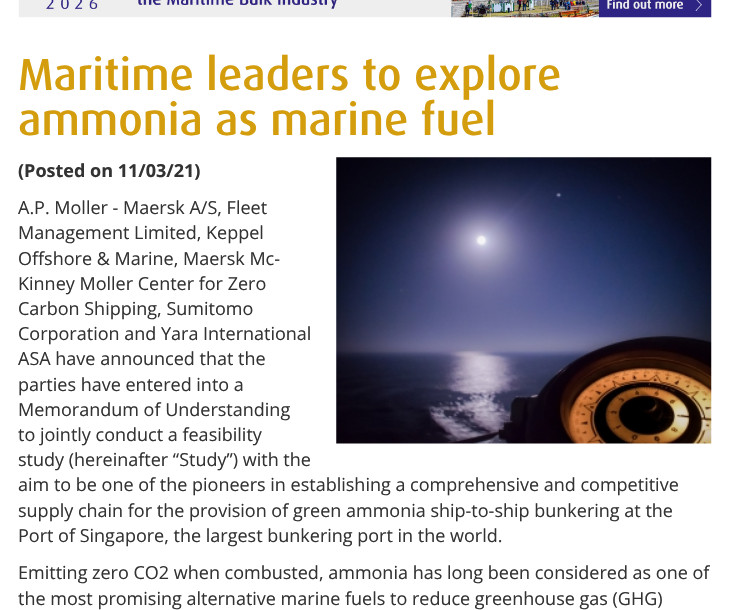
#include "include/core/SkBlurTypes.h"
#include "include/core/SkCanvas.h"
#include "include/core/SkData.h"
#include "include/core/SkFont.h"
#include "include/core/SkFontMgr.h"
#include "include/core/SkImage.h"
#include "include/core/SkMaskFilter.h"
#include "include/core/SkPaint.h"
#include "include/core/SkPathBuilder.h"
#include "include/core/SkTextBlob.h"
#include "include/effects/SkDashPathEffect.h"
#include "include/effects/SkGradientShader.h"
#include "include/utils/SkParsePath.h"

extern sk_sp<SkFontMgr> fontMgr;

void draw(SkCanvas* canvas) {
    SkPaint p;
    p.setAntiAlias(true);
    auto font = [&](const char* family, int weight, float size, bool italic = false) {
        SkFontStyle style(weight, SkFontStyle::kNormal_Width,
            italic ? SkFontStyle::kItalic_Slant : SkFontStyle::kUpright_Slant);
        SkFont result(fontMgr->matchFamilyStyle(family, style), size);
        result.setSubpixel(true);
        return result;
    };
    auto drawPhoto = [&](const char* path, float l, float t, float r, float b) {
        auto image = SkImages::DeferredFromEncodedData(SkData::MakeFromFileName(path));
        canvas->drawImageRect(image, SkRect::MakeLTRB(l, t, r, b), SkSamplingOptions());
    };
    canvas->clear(0xFFFFFFFF);
    drawPhoto("media/1.png", 18, 0, 712, 18);
    auto font1 = font("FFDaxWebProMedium", 400, 45);
    p.setColor(0xFFD39D0D);
    canvas->drawString("Maritime leaders to explore", 18, 90, font1, p);
    canvas->drawString("ammonia as marine fuel", 18, 135, font1, p);
    auto font2 = font("Open Sans", 700, 18);
    p.setColor(0xFF333333);
    canvas->drawString("(Posted on 11/03/21)", 18, 177, font2, p);
    drawPhoto("media/2.png", 336, 157, 712, 444);
    auto font3 = font("Open Sans", 400, 18);
    {
        const struct { const char* s; float x, y; } items[] = {
            {"A.P. Moller - Maersk A/S, Fleet", 18, 214},
            {"Management Limited, Keppel", 18, 239},
            {"Offshore & Marine, Maersk Mc-", 18, 265},
            {"Kinney Moller Center for Zero", 18, 290},
            {"Carbon Shipping, Sumitomo", 18, 315},
            {"Corporation and Yara International", 18, 340},
            {"ASA have announced that the", 18, 365},
            {"parties have entered into a", 18, 391},
            {"Memorandum of Understanding", 18, 416},
            {"to jointly conduct a feasibility", 18, 441},
            {"study (hereinafter “Study”) with the", 18, 466},
            {"aim to be one of the pioneers in establishing a comprehensive and competitive", 18, 491},
            {"supply chain for the provision of green ammonia ship-to-ship bunkering at the", 18, 517},
            {"Port of Singapore, the largest bunkering port in the world.", 18, 542},
            {"Emitting zero CO2 when combusted, ammonia has long been considered as one of", 18, 579},
            {"the most promising alternative marine fuels to reduce greenhouse gas (GHG)", 18, 605},
        };
        for (auto [s, x, y] : items) {
            canvas->drawString(s, x, y, font3, p);
        }
    }
}
